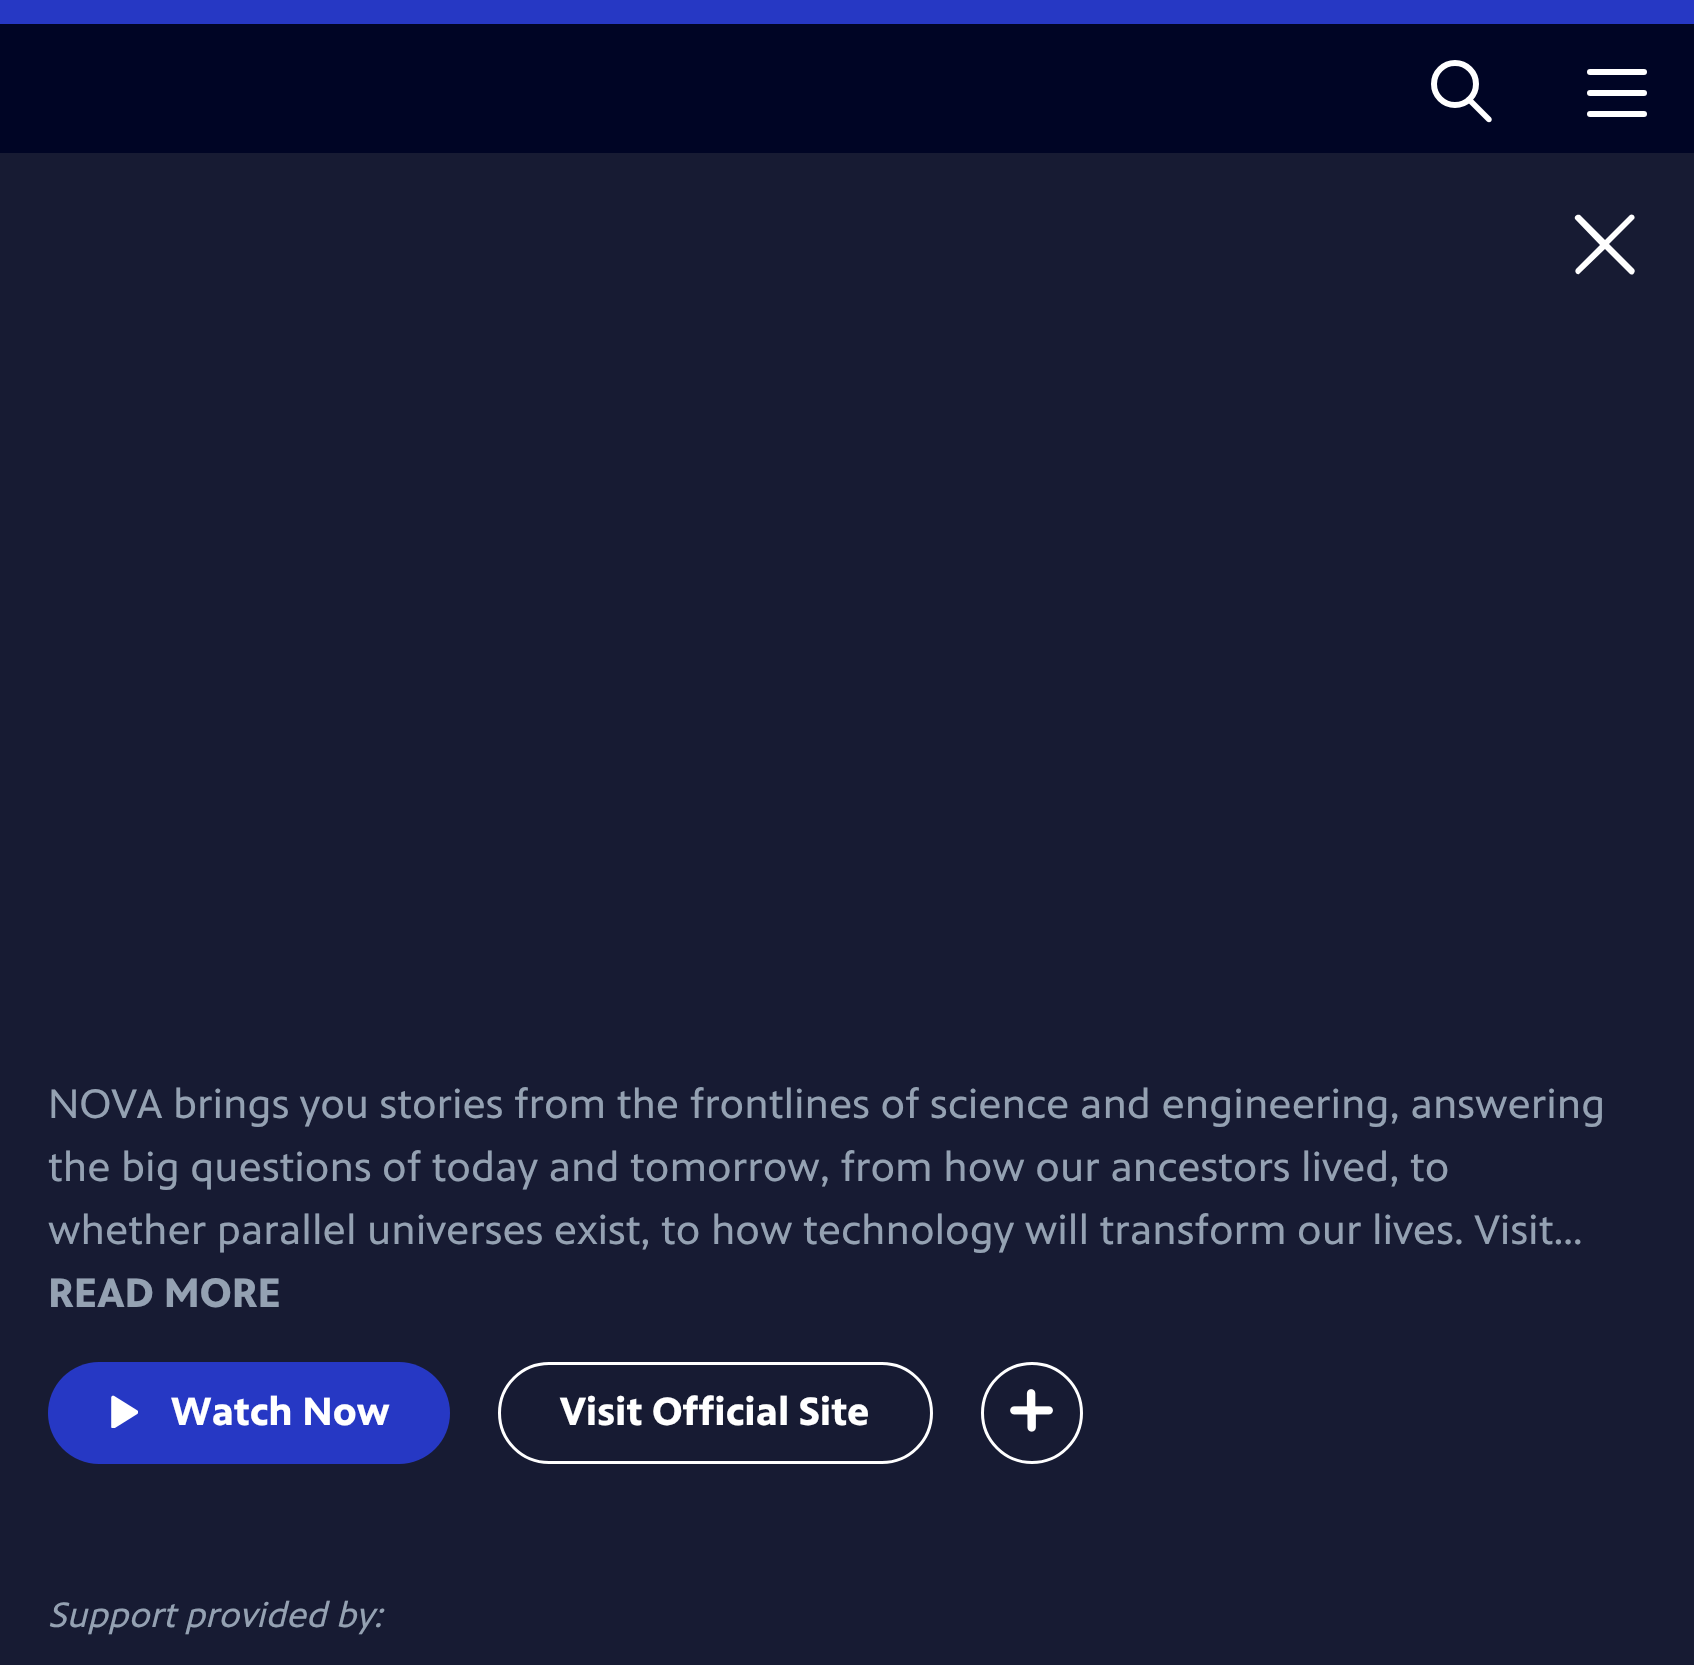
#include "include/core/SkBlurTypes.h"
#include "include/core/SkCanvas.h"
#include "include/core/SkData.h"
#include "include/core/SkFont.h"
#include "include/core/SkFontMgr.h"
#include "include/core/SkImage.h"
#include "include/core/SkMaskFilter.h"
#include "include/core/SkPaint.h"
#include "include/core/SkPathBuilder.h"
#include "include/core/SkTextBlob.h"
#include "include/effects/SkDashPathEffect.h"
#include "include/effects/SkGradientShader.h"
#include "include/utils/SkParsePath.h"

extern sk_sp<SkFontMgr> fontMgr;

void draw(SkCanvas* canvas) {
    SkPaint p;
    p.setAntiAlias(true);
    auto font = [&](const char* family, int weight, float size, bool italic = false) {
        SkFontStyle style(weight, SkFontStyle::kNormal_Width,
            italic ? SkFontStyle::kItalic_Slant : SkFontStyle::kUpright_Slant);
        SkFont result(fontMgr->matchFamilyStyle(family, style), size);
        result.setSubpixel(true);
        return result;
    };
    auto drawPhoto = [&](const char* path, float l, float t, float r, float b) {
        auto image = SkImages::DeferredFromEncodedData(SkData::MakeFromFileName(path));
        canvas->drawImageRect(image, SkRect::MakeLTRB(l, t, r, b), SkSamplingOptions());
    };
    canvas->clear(0xFF000525);
    p.setColor(0xFF2638C4);
    canvas->drawRect(SkRect::MakeLTRB(0, 0, 1694, 24), p);
    p.setStyle(SkPaint::kStroke_Style);
    p.setStrokeWidth(6);
    p.setColor(0xFFFFFFFF);
    canvas->drawCircle(1455, 84, 21, p);
    p.setStyle(SkPaint::kFill_Style);
    canvas->drawPath(SkPathBuilder().moveTo(1487, 121.5f).lineTo(1467, 101.5f).cubicTo(1465.5f, 100.5f, 1465.5f, 98.5f, 1467, 97.5f).cubicTo(1468, 96, 1470, 96, 1471, 97.5f).lineTo(1491, 117.5f).cubicTo(1492, 118.5f, 1492, 120.5f, 1491, 121.5f).cubicTo(1490, 122.5f, 1488, 122.5f, 1487, 121.5f).close().detach(), p);
    canvas->drawRoundRect(SkRect::MakeLTRB(1587, 69, 1647, 75), 3, 3, p);
    canvas->drawRoundRect(SkRect::MakeLTRB(1587, 90, 1647, 96), 3, 3, p);
    canvas->drawRoundRect(SkRect::MakeLTRB(1587, 111, 1647, 117), 3, 3, p);
    p.setColor(0xFF171B33);
    canvas->drawRect(SkRect::MakeLTRB(0, 153, 1694, 1665), p);
    p.setColor(0xFFFFFFFF);
    canvas->drawPath(SkPathBuilder().moveTo(1609, 244).lineTo(1634, 219).cubicTo(1636, 217, 1633, 213, 1630, 215).lineTo(1605, 240).lineTo(1580, 215).cubicTo(1577, 214, 1574, 216, 1575, 219).lineTo(1600, 245).lineTo(1576, 269).cubicTo(1574, 272, 1577, 275, 1579, 274).lineTo(1605, 249).lineTo(1629, 273).cubicTo(1631, 275, 1633, 275, 1634, 273).cubicTo(1635, 272, 1635, 270, 1634, 269).close().detach(), p);
    auto font1 = font("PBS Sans", 400, 42);
    p.setColor(0xFF94A1B2);
    {
        const struct { const char* s; float x, y; } items[] = {
            {"NOVA brings you stories from the frontlines of science and engineering, answering", 48, 1118},
            {"the big questions of today and tomorrow, from how our ancestors lived, to", 48, 1181},
            {"whether parallel universes exist, to how technology will transform our lives. Visit…", 48, 1244},
        };
        for (auto [s, x, y] : items) {
            canvas->drawString(s, x, y, font1, p);
        }
    }
    auto font2 = font("PBS Sans", 700, 42);
    canvas->drawString("READ MORE", 48, 1307, font2, p);
    p.setColor(0xFF2638C4);
    canvas->drawRoundRect(SkRect::MakeLTRB(48, 1362, 450, 1464), 51, 51, p);
    drawPhoto("media/1.png", 111, 1395, 138, 1428);
    auto font3 = font("PBS Sans", 700, 40.25f);
    p.setColor(0xFFFFFFFF);
    canvas->drawString("Watch Now", 171, 1425, font3, p);
    p.setStyle(SkPaint::kStroke_Style);
    p.setStrokeWidth(3);
    canvas->drawRoundRect(SkRect::MakeLTRB(499.5f, 1363.5f, 931.5f, 1462.5f), 49.5f, 49.5f, p);
    p.setStyle(SkPaint::kFill_Style);
    canvas->drawString("Visit Official Site", 560, 1425, font3, p);
    p.setStyle(SkPaint::kStroke_Style);
    canvas->drawCircle(1032, 1413, 49.5f, p);
    drawPhoto("media/2.png", 1010, 1389, 1053, 1432);
    auto font4 = font("PBS Sans", 400, 36, true);
    p.setStyle(SkPaint::kFill_Style);
    p.setColor(0xFF94A1B2);
    canvas->drawString("Support provided by:", 48, 1627, font4, p);
}
